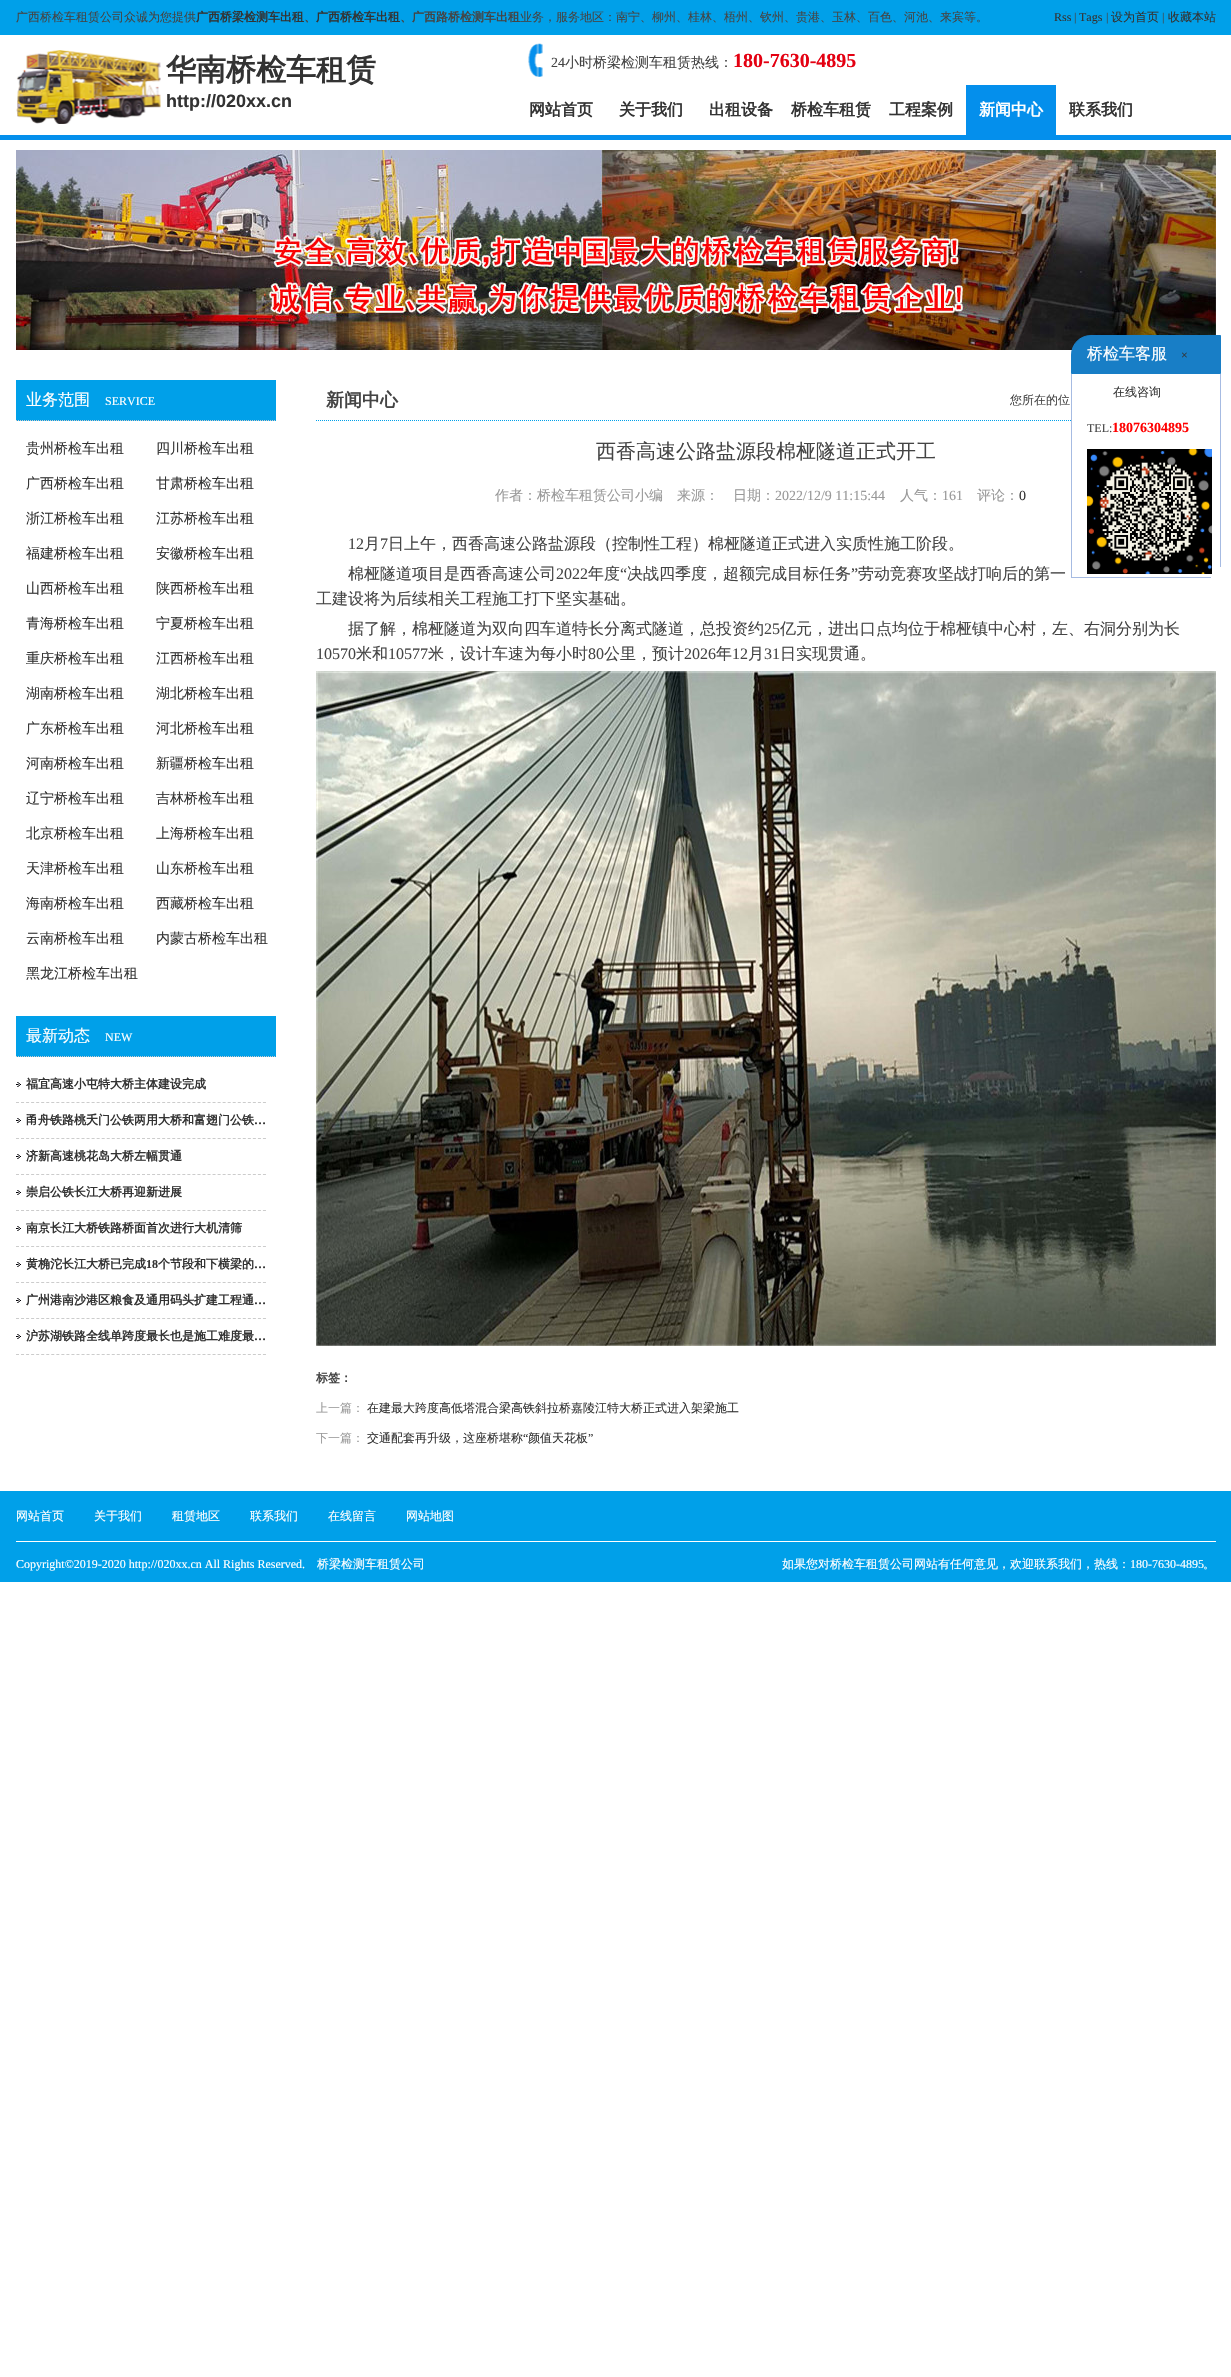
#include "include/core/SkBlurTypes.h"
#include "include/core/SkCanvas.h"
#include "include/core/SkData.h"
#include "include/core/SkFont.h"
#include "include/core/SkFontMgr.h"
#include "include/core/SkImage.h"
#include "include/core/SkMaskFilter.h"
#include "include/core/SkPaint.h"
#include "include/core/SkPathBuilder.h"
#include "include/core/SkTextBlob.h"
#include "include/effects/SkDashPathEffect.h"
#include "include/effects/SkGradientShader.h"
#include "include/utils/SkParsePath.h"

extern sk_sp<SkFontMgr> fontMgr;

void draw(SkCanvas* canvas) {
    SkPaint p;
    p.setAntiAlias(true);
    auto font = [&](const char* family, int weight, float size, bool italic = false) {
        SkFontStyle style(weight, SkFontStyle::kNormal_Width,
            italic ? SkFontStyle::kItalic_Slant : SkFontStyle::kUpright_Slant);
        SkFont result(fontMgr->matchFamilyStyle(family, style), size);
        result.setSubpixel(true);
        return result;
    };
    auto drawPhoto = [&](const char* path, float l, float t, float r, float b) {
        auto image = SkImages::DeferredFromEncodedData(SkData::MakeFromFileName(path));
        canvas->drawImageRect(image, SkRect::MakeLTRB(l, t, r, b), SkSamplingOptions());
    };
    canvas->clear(0xFFFFFFFF);
    p.setColor(0xFF00A0E9);
    canvas->drawRect(SkRect::MakeLTRB(0, 0, 1231, 35), p);
    auto font1 = font("WenQuanYi Zen Hei", 500, 12);
    p.setColor(0xFF444444);
    canvas->drawString("广西桥检车租赁公司众诚为您提供", 16, 21, font1, p);
    auto font2 = font("WenQuanYi Zen Hei", 700, 12);
    p.setColor(0xFF333333);
    canvas->drawString("广西桥梁检测车出租", 196, 21, font2, p);
    p.setColor(0xFF444444);
    canvas->drawString("、", 304, 21, font2, p);
    p.setColor(0xFF333333);
    canvas->drawString("广西桥检车出租", 316, 21, font2, p);
    p.setColor(0xFF444444);
    canvas->drawString("、广西路桥检测车出租", 400, 21, font2, p);
    canvas->drawString("业务，服务地区：南宁、柳州、桂林、梧州、钦州、贵港、玉林、百色、河池、来宾等。", 520, 21, font1, p);
    auto font3 = font("Liberation Serif", 400, 12);
    p.setColor(0xFF333333);
    canvas->drawString("Rss", 1054, 21, font3, p);
    p.setColor(0xFF444444);
    canvas->drawString("|", 1074, 21, font3, p);
    p.setColor(0xFF333333);
    canvas->drawString("Tags", 1079, 21, font3, p);
    p.setColor(0xFF444444);
    canvas->drawString("|", 1106, 21, font3, p);
    p.setColor(0xFF333333);
    canvas->drawString("设为首页", 1111, 21, font1, p);
    p.setColor(0xFF444444);
    canvas->drawString("|", 1162, 21, font3, p);
    p.setColor(0xFF333333);
    canvas->drawString("收藏本站", 1168, 21, font1, p);
    drawPhoto("media/1.png", 16, 50, 161, 124);
    auto font4 = font("WenQuanYi Zen Hei", 700, 30);
    canvas->drawString("华南桥检车租赁", 166, 80, font4, p);
    auto font5 = font("Liberation Sans", 700, 18);
    canvas->drawString("http://020xx.cn", 166, 107, font5, p);
    drawPhoto("media/2.png", 528, 43, 543, 77);
    auto font6 = font("Liberation Serif", 400, 14);
    p.setColor(0xFF444444);
    canvas->drawString("24", 551, 67, font6, p);
    auto font7 = font("WenQuanYi Zen Hei", 500, 14);
    canvas->drawString("小时桥梁检测车租赁热线：", 565, 67, font7, p);
    auto font8 = font("Liberation Serif", 700, 20);
    p.setColor(0xFFE40011);
    canvas->drawString("180-7630-4895", 733, 67, font8, p);
    auto font9 = font("WenQuanYi Zen Hei", 700, 16);
    p.setColor(0xFF333333);
    {
        const struct { const char* s; float x, y; } items[] = {
            {"网站首页", 529, 115},
            {"关于我们", 619, 115},
            {"出租设备", 709, 115},
            {"桥检车租赁", 791, 115},
            {"工程案例", 889, 115},
        };
        for (auto [s, x, y] : items) {
            canvas->drawString(s, x, y, font9, p);
        }
    }
    p.setColor(0xFF048FEC);
    canvas->drawRect(SkRect::MakeLTRB(966, 85, 1056, 135), p);
    p.setColor(0xFFFFFFFF);
    canvas->drawString("新闻中心", 979, 115, font9, p);
    p.setColor(0xFF333333);
    canvas->drawString("联系我们", 1069, 115, font9, p);
    p.setColor(0xFF048FEC);
    canvas->drawRect(SkRect::MakeLTRB(0, 135, 1231, 140), p);
    p.setColor(0xFFA6BBE2);
    canvas->drawRect(SkRect::MakeLTRB(1071, 577, 1211, 578), p);
    drawPhoto("media/4.png", 16, 150, 1216, 350);
    p.setColor(0xFF187EC6);
    canvas->drawPath(SkPathBuilder().moveTo(1091, 335.5f).lineTo(1220.5f, 335.5f).lineTo(1220.5f, 373.5f).lineTo(1071.5f, 373.5f).lineTo(1071.5f, 355).cubicTo(1071.5f, 344, 1080, 335.5f, 1091, 335.5f).close().detach(), p);
    p.setStyle(SkPaint::kStroke_Style);
    p.setStrokeWidth(1);
    canvas->drawPath(SkPathBuilder().moveTo(1091, 335.5f).lineTo(1220.5f, 335.5f).lineTo(1220.5f, 373.5f).lineTo(1071.5f, 373.5f).lineTo(1071.5f, 355).cubicTo(1071.5f, 344, 1080, 335.5f, 1091, 335.5f).close().detach(), p);
    auto font10 = font("WenQuanYi Zen Hei", 500, 16);
    p.setStyle(SkPaint::kFill_Style);
    p.setColor(0xFFFFFFFF);
    canvas->drawString("桥检车客服", 1087, 359, font10, p);
    p.setColor(0xFF333333);
    canvas->drawString("×", 1181, 359, font3, p);
    p.setColor(0xFFA6BBE2);
    canvas->drawRect(SkRect::MakeLTRB(1220, 374, 1221, 567), p);
    p.setStyle(SkPaint::kStroke_Style);
    p.setColor(0xFF00A0E9);
    p.setPathEffect(SkDashPathEffect::Make({{1, 1}}, 0));
    canvas->drawPath(SkPathBuilder().moveTo(316, 420.5f).lineTo(1216, 420.5f).detach(), p);
    p.setPathEffect(nullptr);
    p.setStyle(SkPaint::kFill_Style);
    p.setColor(0xFFA6BBE2);
    canvas->drawRect(SkRect::MakeLTRB(1071, 374, 1072, 577), p);
    p.setColor(0xFF333333);
    canvas->drawString("在线咨询", 1113, 396, font1, p);
    p.setColor(0xFFFFFFFF);
    canvas->drawRect(SkRect::MakeLTRB(1072, 420, 1215, 421), p);
    p.setColor(0xFF444444);
    canvas->drawString("TEL:", 1087, 432, font3, p);
    auto font11 = font("Liberation Serif", 700, 14);
    p.setColor(0xFFFF0000);
    canvas->drawString("18076304895", 1112, 432, font11, p);
    drawPhoto("media/3.png", 1087, 449, 1212, 574);
    p.setColor(0xFF00A0E9);
    canvas->drawRect(SkRect::MakeLTRB(16, 380, 276, 421), p);
    p.setStyle(SkPaint::kStroke_Style);
    p.setColor(0xFFCCCCCC);
    p.setPathEffect(SkDashPathEffect::Make({{1, 1}}, 0));
    canvas->drawPath(SkPathBuilder().moveTo(16, 420.5f).lineTo(276, 420.5f).detach(), p);
    p.setPathEffect(nullptr);
    p.setStyle(SkPaint::kFill_Style);
    p.setColor(0xFFFFFFFF);
    canvas->drawString("业务范围", 26, 405, font10, p);
    canvas->drawString("SERVICE", 105, 405, font3, p);
    p.setColor(0xFF333333);
    {
        const struct { const char* s; float x, y; } items[] = {
            {"贵州桥检车出租", 26, 453},
            {"四川桥检车出租", 156, 453},
            {"广西桥检车出租", 26, 488},
            {"甘肃桥检车出租", 156, 488},
            {"浙江桥检车出租", 26, 523},
            {"江苏桥检车出租", 156, 523},
            {"福建桥检车出租", 26, 558},
            {"安徽桥检车出租", 156, 558},
            {"山西桥检车出租", 26, 593},
            {"陕西桥检车出租", 156, 593},
            {"青海桥检车出租", 26, 628},
            {"宁夏桥检车出租", 156, 628},
            {"重庆桥检车出租", 26, 663},
            {"江西桥检车出租", 156, 663},
            {"湖南桥检车出租", 26, 698},
            {"湖北桥检车出租", 156, 698},
            {"广东桥检车出租", 26, 733},
            {"河北桥检车出租", 156, 733},
            {"河南桥检车出租", 26, 768},
            {"新疆桥检车出租", 156, 768},
            {"辽宁桥检车出租", 26, 803},
            {"吉林桥检车出租", 156, 803},
            {"北京桥检车出租", 26, 838},
            {"上海桥检车出租", 156, 838},
            {"天津桥检车出租", 26, 873},
            {"山东桥检车出租", 156, 873},
            {"海南桥检车出租", 26, 908},
            {"西藏桥检车出租", 156, 908},
            {"云南桥检车出租", 26, 943},
            {"内蒙古桥检车出租", 156, 943},
            {"黑龙江桥检车出租", 26, 978},
        };
        for (auto [s, x, y] : items) {
            canvas->drawString(s, x, y, font7, p);
        }
    }
    p.setColor(0xFF00A0E9);
    canvas->drawRect(SkRect::MakeLTRB(16, 1016, 276, 1057), p);
    p.setStyle(SkPaint::kStroke_Style);
    p.setColor(0xFFCCCCCC);
    p.setPathEffect(SkDashPathEffect::Make({{1, 1}}, 0));
    canvas->drawPath(SkPathBuilder().moveTo(16, 1056.5f).lineTo(276, 1056.5f).detach(), p);
    p.setPathEffect(nullptr);
    p.setStyle(SkPaint::kFill_Style);
    p.setColor(0xFFFFFFFF);
    canvas->drawString("最新动态", 26, 1041, font10, p);
    canvas->drawString("NEW", 105, 1041, font3, p);
    drawPhoto("media/5.png", 16, 1082, 21, 1087);
    p.setStyle(SkPaint::kStroke_Style);
    p.setColor(0xFFCCCCCC);
    p.setPathEffect(SkDashPathEffect::Make({{3, 2.04f}}, 0));
    canvas->drawPath(SkPathBuilder().moveTo(16, 1102.5f).lineTo(266, 1102.5f).detach(), p);
    p.setPathEffect(nullptr);
    p.setStyle(SkPaint::kFill_Style);
    p.setColor(0xFF333333);
    canvas->drawString("福宜高速小屯特大桥主体建设完成", 26, 1088, font2, p);
    drawPhoto("media/5.png", 16, 1118, 21, 1123);
    p.setStyle(SkPaint::kStroke_Style);
    p.setColor(0xFFCCCCCC);
    p.setPathEffect(SkDashPathEffect::Make({{3, 2.04f}}, 0));
    canvas->drawPath(SkPathBuilder().moveTo(16, 1138.5f).lineTo(266, 1138.5f).detach(), p);
    p.setPathEffect(nullptr);
    p.setStyle(SkPaint::kFill_Style);
    p.setColor(0xFF333333);
    canvas->drawString("甬舟铁路桃夭门公铁两用大桥和富翅门公铁", 26, 1124, font2, p);
    auto font12 = font("Liberation Serif", 700, 12);
    canvas->drawString("…", 254, 1124, font12, p);
    drawPhoto("media/5.png", 16, 1154, 21, 1159);
    p.setStyle(SkPaint::kStroke_Style);
    p.setColor(0xFFCCCCCC);
    p.setPathEffect(SkDashPathEffect::Make({{3, 2.04f}}, 0));
    canvas->drawPath(SkPathBuilder().moveTo(16, 1174.5f).lineTo(266, 1174.5f).detach(), p);
    p.setPathEffect(nullptr);
    p.setStyle(SkPaint::kFill_Style);
    p.setColor(0xFF333333);
    canvas->drawString("济新高速桃花岛大桥左幅贯通", 26, 1160, font2, p);
    drawPhoto("media/5.png", 16, 1190, 21, 1195);
    p.setStyle(SkPaint::kStroke_Style);
    p.setColor(0xFFCCCCCC);
    p.setPathEffect(SkDashPathEffect::Make({{3, 2.04f}}, 0));
    canvas->drawPath(SkPathBuilder().moveTo(16, 1210.5f).lineTo(266, 1210.5f).detach(), p);
    p.setPathEffect(nullptr);
    p.setStyle(SkPaint::kFill_Style);
    p.setColor(0xFF333333);
    canvas->drawString("崇启公铁长江大桥再迎新进展", 26, 1196, font2, p);
    drawPhoto("media/5.png", 16, 1226, 21, 1231);
    p.setStyle(SkPaint::kStroke_Style);
    p.setColor(0xFFCCCCCC);
    p.setPathEffect(SkDashPathEffect::Make({{3, 2.04f}}, 0));
    canvas->drawPath(SkPathBuilder().moveTo(16, 1246.5f).lineTo(266, 1246.5f).detach(), p);
    p.setPathEffect(nullptr);
    p.setStyle(SkPaint::kFill_Style);
    p.setColor(0xFF333333);
    canvas->drawString("南京长江大桥铁路桥面首次进行大机清筛", 26, 1232, font2, p);
    drawPhoto("media/5.png", 16, 1262, 21, 1267);
    p.setStyle(SkPaint::kStroke_Style);
    p.setColor(0xFFCCCCCC);
    p.setPathEffect(SkDashPathEffect::Make({{3, 2.04f}}, 0));
    canvas->drawPath(SkPathBuilder().moveTo(16, 1282.5f).lineTo(266, 1282.5f).detach(), p);
    p.setPathEffect(nullptr);
    p.setStyle(SkPaint::kFill_Style);
    p.setColor(0xFF333333);
    canvas->drawString("黄桷沱长江大桥已完成", 26, 1268, font2, p);
    canvas->drawString("18", 146, 1268, font12, p);
    canvas->drawString("个节段和下横梁的", 158, 1268, font2, p);
    canvas->drawString("…", 254, 1268, font12, p);
    drawPhoto("media/5.png", 16, 1298, 21, 1303);
    p.setStyle(SkPaint::kStroke_Style);
    p.setColor(0xFFCCCCCC);
    p.setPathEffect(SkDashPathEffect::Make({{3, 2.04f}}, 0));
    canvas->drawPath(SkPathBuilder().moveTo(16, 1318.5f).lineTo(266, 1318.5f).detach(), p);
    p.setPathEffect(nullptr);
    p.setStyle(SkPaint::kFill_Style);
    p.setColor(0xFF333333);
    canvas->drawString("广州港南沙港区粮食及通用码头扩建工程通", 26, 1304, font2, p);
    canvas->drawString("…", 254, 1304, font12, p);
    drawPhoto("media/5.png", 16, 1334, 21, 1339);
    p.setStyle(SkPaint::kStroke_Style);
    p.setColor(0xFFCCCCCC);
    p.setPathEffect(SkDashPathEffect::Make({{3, 2.04f}}, 0));
    canvas->drawPath(SkPathBuilder().moveTo(16, 1354.5f).lineTo(266, 1354.5f).detach(), p);
    p.setPathEffect(nullptr);
    p.setStyle(SkPaint::kFill_Style);
    p.setColor(0xFF333333);
    canvas->drawString("沪苏湖铁路全线单跨度最长也是施工难度最", 26, 1340, font2, p);
    canvas->drawString("…", 254, 1340, font12, p);
    auto font13 = font("WenQuanYi Zen Hei", 700, 18);
    p.setColor(0xFF444444);
    canvas->drawString("新闻中心", 326, 406, font13, p);
    canvas->drawString("您所在的位", 1010, 404, font1, p);
    auto font14 = font("WenQuanYi Zen Hei", 500, 20);
    canvas->drawString("西香高速公路盐源段棉桠隧道正式开工", 596, 458, font14, p);
    p.setColor(0xFF999999);
    canvas->drawString("作者：桥检车租赁公司小编　来源：　日期：", 495, 500, font7, p);
    canvas->drawString("2022/12/9 11:15:44", 775, 500, font6, p);
    canvas->drawString("人气：", 900, 500, font7, p);
    canvas->drawString("161", 942, 500, font6, p);
    canvas->drawString("评论：", 977, 500, font7, p);
    p.setColor(0xFF333333);
    canvas->drawString("0", 1019, 500, font6, p);
    auto font15 = font("Liberation Serif", 400, 16);
    p.setColor(0xFF444444);
    canvas->drawString("12", 348, 549, font15, p);
    canvas->drawString("月", 364, 549, font10, p);
    canvas->drawString("7", 380, 549, font15, p);
    canvas->drawString("日上午，西香高速公路盐源段（控制性工程）棉桠隧道正式进入实质性施工阶段。", 388, 549, font10, p);
    canvas->drawString("棉桠隧道项目是西香高速公司", 348, 579, font10, p);
    canvas->drawString("2022", 556, 579, font15, p);
    canvas->drawString("年度", 588, 579, font10, p);
    canvas->drawString("“", 620, 579, font15, p);
    canvas->drawString("决战四季度，超额完成目标任务", 627, 579, font10, p);
    canvas->drawString("”", 851, 579, font15, p);
    {
        const struct { const char* s; float x, y; } items[] = {
            {"劳动竞赛攻坚战打响后的第一", 858, 579},
            {"工建设将为后续相关工程施工打下坚实基础。", 316, 604},
            {"据了解，棉桠隧道为双向四车道特长分离式隧道，总投资约", 348, 634},
        };
        for (auto [s, x, y] : items) {
            canvas->drawString(s, x, y, font10, p);
        }
    }
    canvas->drawString("25", 764, 634, font15, p);
    canvas->drawString("亿元，进出口点均位于棉桠镇中心村，左、右洞分别为长", 780, 634, font10, p);
    canvas->drawString("10570", 316, 659, font15, p);
    canvas->drawString("米和", 356, 659, font10, p);
    canvas->drawString("10577", 388, 659, font15, p);
    canvas->drawString("米，设计车速为每小时", 428, 659, font10, p);
    canvas->drawString("80", 588, 659, font15, p);
    canvas->drawString("公里，预计", 604, 659, font10, p);
    canvas->drawString("2026", 684, 659, font15, p);
    canvas->drawString("年", 716, 659, font10, p);
    canvas->drawString("12", 732, 659, font15, p);
    canvas->drawString("月", 748, 659, font10, p);
    canvas->drawString("31", 764, 659, font15, p);
    canvas->drawString("日实现贯通。", 780, 659, font10, p);
    drawPhoto("media/6.png", 316, 671, 1216, 1346);
    canvas->drawString("标签：", 316, 1382, font2, p);
    p.setColor(0xFF999999);
    canvas->drawString("上一篇：", 316, 1412, font1, p);
    p.setColor(0xFF333333);
    canvas->drawString("在建最大跨度高低塔混合梁高铁斜拉桥嘉陵江特大桥正式进入架梁施工", 367, 1412, font1, p);
    p.setColor(0xFF999999);
    canvas->drawString("下一篇：", 316, 1442, font1, p);
    p.setColor(0xFF333333);
    canvas->drawString("交通配套再升级，这座桥堪称", 367, 1442, font1, p);
    canvas->drawString("“", 523, 1442, font3, p);
    canvas->drawString("颜值天花板", 528, 1442, font1, p);
    canvas->drawString("”", 588, 1442, font3, p);
    p.setColor(0xFF00A0E9);
    canvas->drawRect(SkRect::MakeLTRB(0, 1491, 1231, 1582), p);
    p.setColor(0xFFFFFFFF);
    canvas->drawRect(SkRect::MakeLTRB(16, 1541, 1216, 1542), p);
    {
        const struct { const char* s; float x, y; } items[] = {
            {"网站首页", 16, 1520},
            {"关于我们", 94, 1520},
            {"租赁地区", 172, 1520},
            {"联系我们", 250, 1520},
            {"在线留言", 328, 1520},
            {"网站地图", 406, 1520},
        };
        for (auto [s, x, y] : items) {
            canvas->drawString(s, x, y, font1, p);
        }
    }
    canvas->drawString("Copyright©2019-2020 http://020xx.cn All Rights Reserved.", 16, 1568, font3, p);
    canvas->drawString("桥梁检测车租赁公司", 317, 1568, font1, p);
    canvas->drawString("如果您对桥检车租赁公司网站有任何意见，欢迎联系我们，热线：", 782, 1568, font1, p);
    canvas->drawString("180-7630-4895", 1130, 1568, font3, p);
    canvas->drawString("。", 1203, 1568, font1, p);
}
